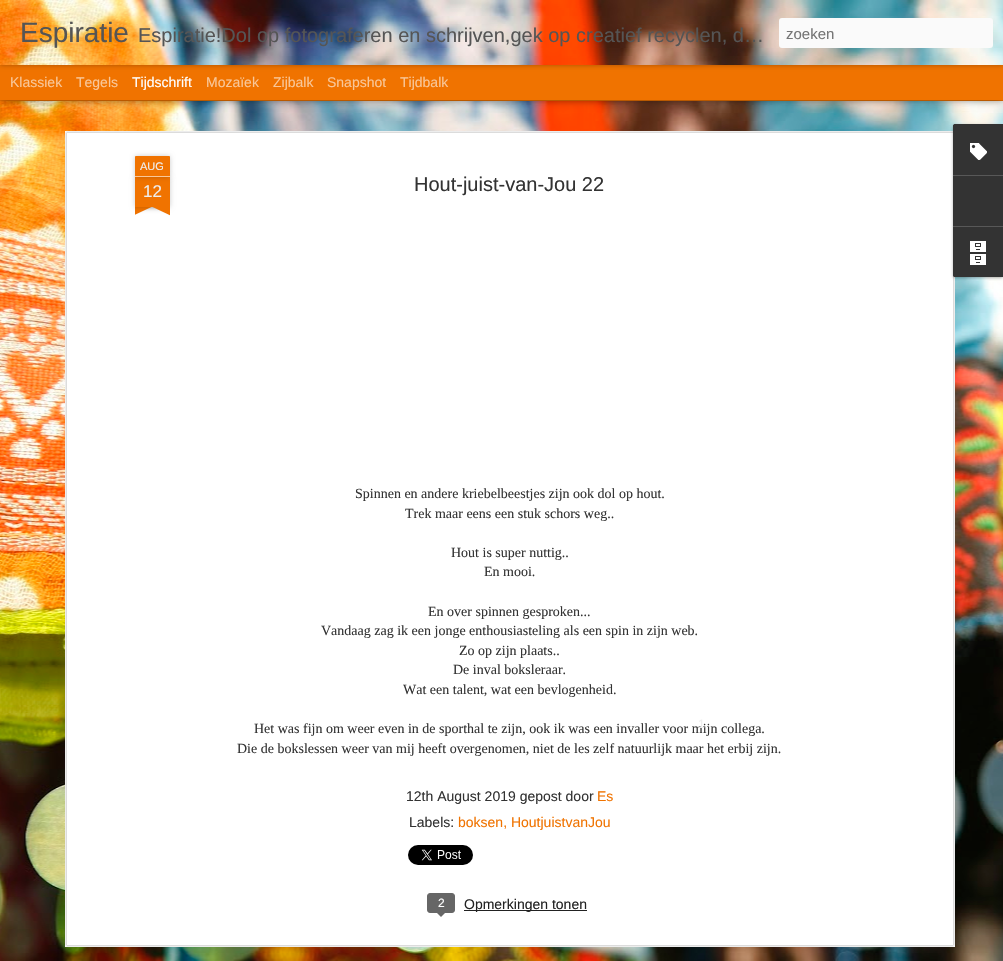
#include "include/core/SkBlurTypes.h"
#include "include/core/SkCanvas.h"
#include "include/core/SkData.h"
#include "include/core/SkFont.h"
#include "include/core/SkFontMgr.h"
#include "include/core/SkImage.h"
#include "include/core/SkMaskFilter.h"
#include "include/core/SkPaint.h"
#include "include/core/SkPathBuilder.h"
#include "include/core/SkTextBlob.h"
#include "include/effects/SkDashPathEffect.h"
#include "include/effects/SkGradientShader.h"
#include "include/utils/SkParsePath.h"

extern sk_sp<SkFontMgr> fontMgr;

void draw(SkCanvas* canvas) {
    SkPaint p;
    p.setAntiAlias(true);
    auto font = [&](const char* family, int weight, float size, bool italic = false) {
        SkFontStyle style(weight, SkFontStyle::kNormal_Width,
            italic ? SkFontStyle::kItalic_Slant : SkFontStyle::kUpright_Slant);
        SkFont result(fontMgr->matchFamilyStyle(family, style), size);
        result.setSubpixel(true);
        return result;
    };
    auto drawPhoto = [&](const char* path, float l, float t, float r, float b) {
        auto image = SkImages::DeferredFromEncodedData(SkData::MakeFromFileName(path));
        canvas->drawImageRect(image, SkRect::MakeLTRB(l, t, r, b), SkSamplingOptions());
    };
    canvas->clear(0xFFF07300);
    drawPhoto("media/2.png", 0, 101, 1003, 961);
    p.setColor(0x80000000);
    p.setMaskFilter(SkMaskFilter::MakeBlur(kNormal_SkBlurStyle, 4));
    canvas->drawRect(SkRect::MakeLTRB(0, 65, 1003, 100), p);
    p.setMaskFilter(nullptr);
    p.setColor(0xFFF07300);
    canvas->drawRect(SkRect::MakeLTRB(0, 65, 1003, 100), p);
    p.setColor(0x4D000000);
    p.setMaskFilter(SkMaskFilter::MakeBlur(kNormal_SkBlurStyle, 2.5f));
    canvas->drawRect(SkRect::MakeLTRB(0, 0, 1003, 65), p);
    p.setMaskFilter(nullptr);
    drawPhoto("media/1.png", 0, 0, 1003, 65);
    auto font1 = font("Liberation Sans", 400, 28);
    p.setColor(0xFF555555);
    canvas->drawString("Espiratie", 20, 42, font1, p);
    auto font2 = font("Liberation Sans", 400, 20);
    canvas->drawString("Espiratie!Dol op fotograferen en schrijven,gek op creatief recyclen, d…", 138, 42, font2, p);
    p.setColor(0xFFFAFAFA);
    canvas->drawRoundRect(SkRect::MakeLTRB(779, 18, 993, 48), 3, 3, p);
    auto font3 = font("Liberation Sans", 400, 15);
    p.setColor(0xFF757575);
    canvas->drawString("zoeken", 786, 39, font3, p);
    auto font4 = font("Liberation Sans", 400, 14);
    p.setColor(0xFFF9C799);
    canvas->drawString("Klassiek", 10, 87, font4, p);
    canvas->drawString("Tegels", 76, 87, font4, p);
    p.setColor(0xFFFFFFFF);
    canvas->drawString("Tijdschrift", 132, 87, font4, p);
    p.setColor(0xFFF9C799);
    {
        const struct { const char* s; float x, y; } items[] = {
            {"Mozaïek", 206, 87},
            {"Zijbalk", 273, 87},
            {"Snapshot", 327, 87},
            {"Tijdbalk", 400, 87},
        };
        for (auto [s, x, y] : items) {
            canvas->drawString(s, x, y, font4, p);
        }
    }
    p.setColor(0xFFFFFFFF);
    canvas->drawRect(SkRect::MakeLTRB(65, 131, 955, 947), p);
    drawPhoto("media/3.png", 65, 131, 955, 947);
    p.setColor(0x33000000);
    p.setMaskFilter(SkMaskFilter::MakeBlur(kNormal_SkBlurStyle, 2.5f));
    canvas->drawRect(SkRect::MakeLTRB(135, 177, 170, 207), p);
    p.setMaskFilter(nullptr);
    p.setColor(0xFFF07300);
    canvas->drawRect(SkRect::MakeLTRB(135, 177, 170, 207), p);
    p.setColor(0x33000000);
    p.setMaskFilter(SkMaskFilter::MakeBlur(kNormal_SkBlurStyle, 2.5f));
    canvas->drawRoundRect(SkRect::MakeLTRB(135, 156, 170, 177), 1, 1, p);
    p.setMaskFilter(nullptr);
    p.setColor(0xFFF07300);
    canvas->drawPath(SkPathBuilder().moveTo(136, 156).lineTo(169, 156).cubicTo(169.5f, 156, 170, 156.5f, 170, 157).lineTo(170, 177).lineTo(135, 177).lineTo(135, 157).cubicTo(135, 156.5f, 135.5f, 156, 136, 156).close().detach(), p);
    p.setColor(0xFFF9C799);
    canvas->drawRect(SkRect::MakeLTRB(135, 176, 170, 177), p);
    auto font5 = font("Liberation Sans", 400, 11);
    p.setColor(0xFFEEEEEE);
    canvas->drawString("AUG", 140, 170, font5, p);
    auto font6 = font("Liberation Sans", 400, 17);
    canvas->drawString("12", 143, 197, font6, p);
    canvas->save();
    canvas->clipRect(SkRect::MakeLTRB(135, 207, 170, 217));
    p.setColor(0x33000000);
    p.setMaskFilter(SkMaskFilter::MakeBlur(kNormal_SkBlurStyle, 2.5f));
    canvas->drawRect(SkRect::MakeLTRB(126, 197, 176, 207), p);
    p.setMaskFilter(nullptr);
    canvas->restore();
    canvas->save();
    canvas->clipRect(SkRect::MakeLTRB(135, 207, 170, 217));
    p.setColor(0xFFF07300);
    canvas->drawPath(SkPathBuilder().moveTo(126, 208).lineTo(171, 187).lineTo(175, 196).lineTo(130, 217).close().detach(), p);
    canvas->restore();
    canvas->save();
    canvas->clipRect(SkRect::MakeLTRB(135, 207, 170, 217));
    p.setColor(0x33000000);
    p.setMaskFilter(SkMaskFilter::MakeBlur(kNormal_SkBlurStyle, 2.5f));
    canvas->drawRect(SkRect::MakeLTRB(129, 197, 179, 207), p);
    p.setMaskFilter(nullptr);
    canvas->restore();
    canvas->save();
    canvas->clipRect(SkRect::MakeLTRB(135, 207, 170, 217));
    p.setColor(0xFFF07300);
    canvas->drawPath(SkPathBuilder().moveTo(133, 187).lineTo(178, 208).lineTo(174, 217).lineTo(129, 196).close().detach(), p);
    canvas->restore();
    p.setColor(0xFF333333);
    canvas->drawString("Hout-juist-van-Jou 22", 414, 191, font2, p);
    auto font7 = font("Liberation Serif", 400, 14);
    {
        const struct { const char* s; float x, y; } items[] = {
            {"Spinnen en andere kriebelbeestjes zijn ook dol op hout.", 355, 498},
            {"Trek maar eens een stuk schors weg..", 405, 518},
            {"Hout is super nuttig..", 451, 557},
            {"En mooi.", 484, 576},
            {"En over spinnen gesproken...", 428, 616},
            {"Vandaag zag ik een jonge enthousiasteling als een spin in zijn web.", 321, 635},
            {"Zo op zijn plaats..", 459, 655},
            {"De inval boksleraar.", 453, 674},
            {"Wat een talent, wat een bevlogenheid.", 403, 694},
            {"Het was fijn om weer even in de sporthal te zijn, ook ik was een invaller voor mijn collega.", 254, 733},
            {"Die de bokslessen weer van mij heeft overgenomen, niet de les zelf natuurlijk maar het erbij zijn.", 237, 753},
        };
        for (auto [s, x, y] : items) {
            canvas->drawString(s, x, y, font7, p);
        }
    }
    canvas->drawString("12th August 2019 gepost door", 406, 801, font4, p);
    p.setColor(0xFFF07300);
    canvas->drawString("Es", 597, 801, font4, p);
    p.setColor(0xFF333333);
    canvas->drawString("Labels:", 409, 827, font4, p);
    p.setColor(0xFFF07300);
    canvas->drawString("boksen, HoutjuistvanJou", 458, 827, font4, p);
    drawPhoto("media/4.png", 408, 845, 473, 865);
    p.setColor(0xFF666666);
    canvas->drawRoundRect(SkRect::MakeLTRB(427.5f, 893.5f, 454.5f, 912.5f), 2.5f, 2.5f, p);
    p.setStyle(SkPaint::kStroke_Style);
    p.setStrokeWidth(1);
    canvas->drawRoundRect(SkRect::MakeLTRB(427.5f, 893.5f, 454.5f, 912.5f), 2.5f, 2.5f, p);
    auto font8 = font("Liberation Sans", 400, 12);
    p.setStyle(SkPaint::kFill_Style);
    p.setColor(0xFFFFFFFF);
    canvas->drawString("2", 438, 907, font8, p);
    p.setColor(0xFF666666);
    canvas->drawPath(SkPathBuilder().moveTo(436, 912).lineTo(446, 912).lineTo(441, 917).close().detach(), p);
    p.setColor(0xFF222222);
    canvas->drawRect(SkRect::MakeLTRB(464, 910, 587, 911), p);
    canvas->drawString("Opmerkingen tonen", 464, 909, font4, p);
    p.setColor(0x4D000000);
    p.setMaskFilter(SkMaskFilter::MakeBlur(kNormal_SkBlurStyle, 1.5f));
    canvas->drawRoundRect(SkRect::MakeLTRB(953, 125, 1003, 278), 2, 2, p);
    p.setMaskFilter(nullptr);
    p.setColor(0xFF333333);
    canvas->drawPath(SkPathBuilder().moveTo(955, 124).lineTo(1003, 124).lineTo(1003, 277).lineTo(955, 277).cubicTo(954, 277, 953, 276, 953, 275).lineTo(953, 126).cubicTo(953, 125, 954, 124, 955, 124).close().detach(), p);
    canvas->drawPath(SkPathBuilder().moveTo(955, 124).lineTo(1003, 124).lineTo(1003, 175).lineTo(953, 175).lineTo(953, 126).cubicTo(953, 125, 954, 124, 955, 124).close().detach(), p);
    drawPhoto("media/5.png", 970, 143, 987, 160);
    p.setColor(0xFF585858);
    canvas->drawRect(SkRect::MakeLTRB(953, 175, 1003, 176), p);
    p.setColor(0xFF333333);
    canvas->drawPath(SkPathBuilder().moveTo(953, 226).lineTo(1003, 226).lineTo(1003, 277).lineTo(955, 277).cubicTo(954, 277, 953, 276, 953, 275).close().detach(), p);
    p.setColor(0xFF585858);
    canvas->drawRect(SkRect::MakeLTRB(953, 226, 1003, 227), p);
    drawPhoto("media/6.png", 970, 241, 986, 265);
    p.setColor(0xFFEEEEEE);
    canvas->drawString("1", 698, 728, font8, p);
}
